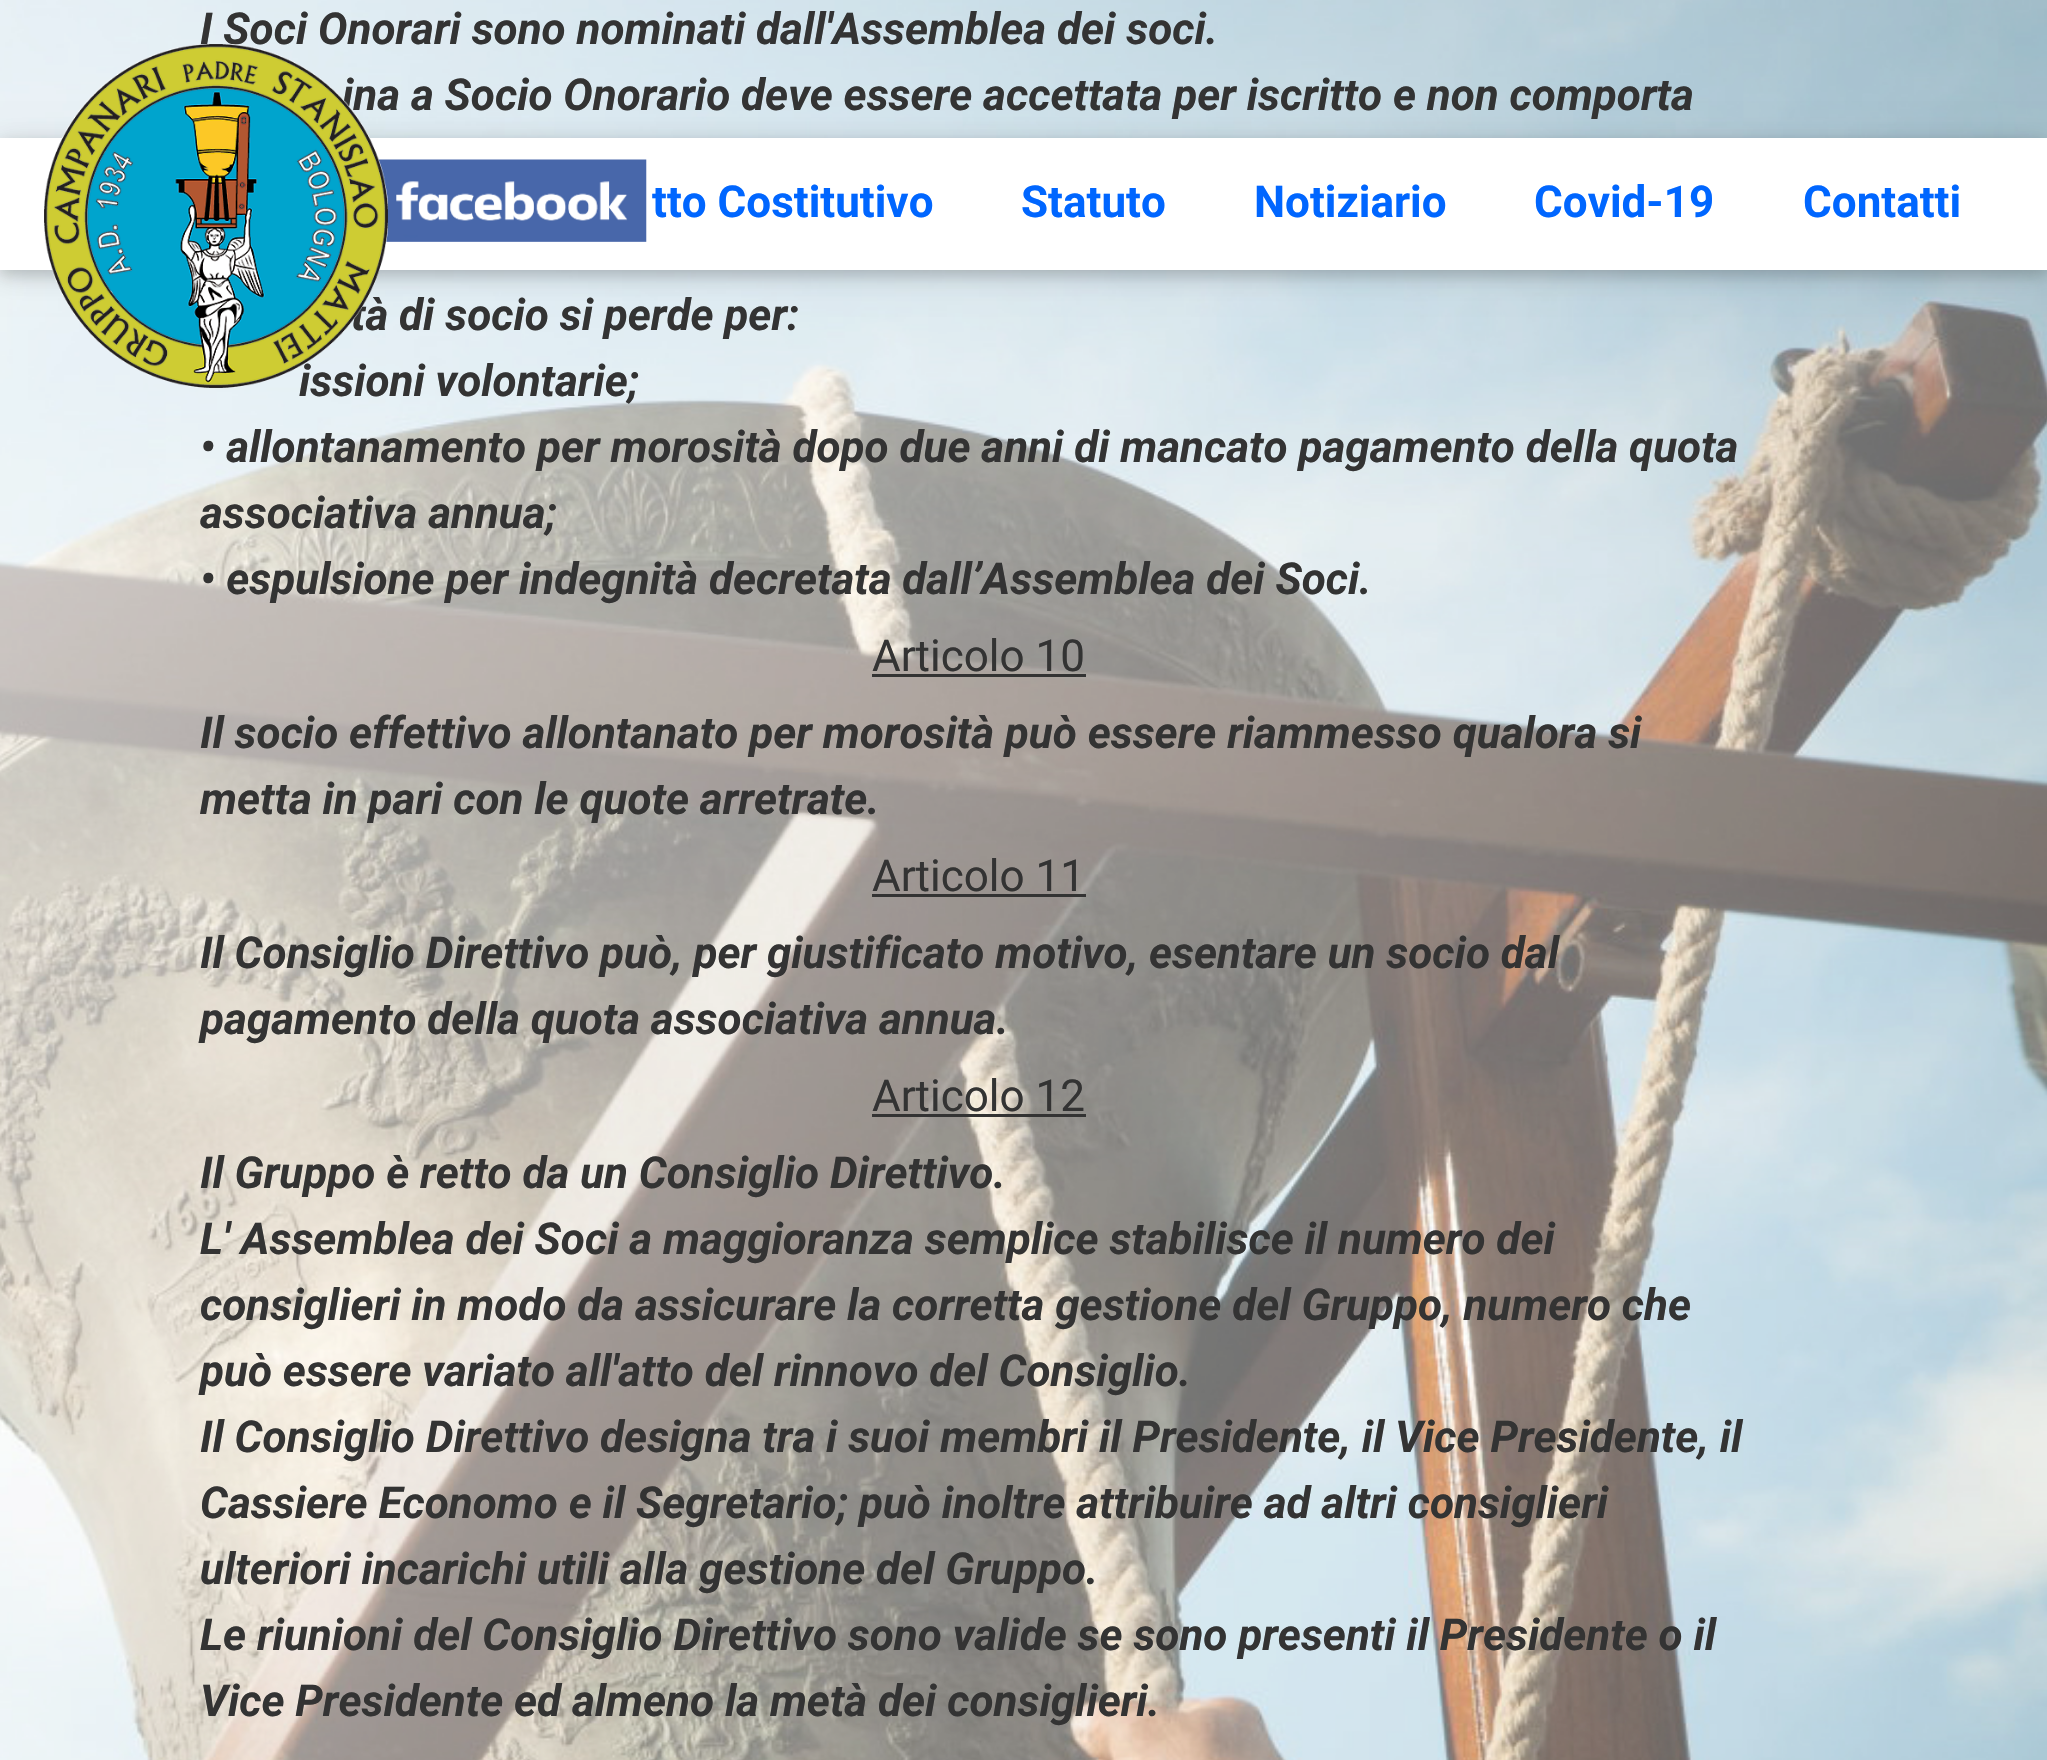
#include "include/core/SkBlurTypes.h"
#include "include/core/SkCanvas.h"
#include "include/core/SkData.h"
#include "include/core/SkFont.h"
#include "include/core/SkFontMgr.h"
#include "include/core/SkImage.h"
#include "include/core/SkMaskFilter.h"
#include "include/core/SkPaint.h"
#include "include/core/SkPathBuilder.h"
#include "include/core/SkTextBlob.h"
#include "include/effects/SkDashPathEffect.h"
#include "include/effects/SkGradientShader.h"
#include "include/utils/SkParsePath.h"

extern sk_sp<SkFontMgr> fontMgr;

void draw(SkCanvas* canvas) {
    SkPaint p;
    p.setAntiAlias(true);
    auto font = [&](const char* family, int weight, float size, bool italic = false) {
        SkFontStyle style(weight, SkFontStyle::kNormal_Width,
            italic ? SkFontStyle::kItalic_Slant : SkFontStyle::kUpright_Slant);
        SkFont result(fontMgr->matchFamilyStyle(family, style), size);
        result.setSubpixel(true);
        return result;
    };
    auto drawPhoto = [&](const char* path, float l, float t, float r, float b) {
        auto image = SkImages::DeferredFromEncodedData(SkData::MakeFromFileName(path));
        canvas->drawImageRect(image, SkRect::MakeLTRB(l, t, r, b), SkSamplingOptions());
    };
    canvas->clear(0xFFFFFFFF);
    drawPhoto("media/1.png", 0, 0, 2047, 1760);
    auto font1 = font("Roboto", 700, 44, true);
    p.setColor(0xFF333333);
    {
        const struct { const char* s; float x, y; } items[] = {
            {"I Soci Onorari sono nominati dall'Assemblea dei soci.", 200, 44},
            {"ina a Socio Onorario deve essere accettata per iscritto e non comporta", 342, 110},
            {"tà di socio si perde per:", 351, 330},
            {"issioni volontarie;", 299, 396},
            {"• allontanamento per morosità dopo due anni di mancato pagamento della quota", 200, 462},
            {"associativa annua;", 200, 528},
            {"• espulsione per indegnità decretata dall’Assemblea dei Soci.", 200, 594},
        };
        for (auto [s, x, y] : items) {
            canvas->drawString(s, x, y, font1, p);
        }
    }
    auto font2 = font("Roboto", 400, 44);
    canvas->drawString("Articolo 10", 872, 671, font2, p);
    canvas->drawRect(SkRect::MakeLTRB(872, 674, 1086, 677), p);
    canvas->drawString("Il socio effettivo allontanato per morosità può essere riammesso qualora si", 200, 748, font1, p);
    canvas->drawString("metta in pari con le quote arretrate.", 200, 814, font1, p);
    canvas->drawString("Articolo 11", 872, 891, font2, p);
    canvas->drawRect(SkRect::MakeLTRB(872, 894, 1086, 897), p);
    canvas->drawString("Il Consiglio Direttivo può, per giustificato motivo, esentare un socio dal", 200, 968, font1, p);
    canvas->drawString("pagamento della quota associativa annua.", 200, 1034, font1, p);
    canvas->drawString("Articolo 12", 872, 1111, font2, p);
    canvas->drawRect(SkRect::MakeLTRB(872, 1114, 1086, 1117), p);
    {
        const struct { const char* s; float x, y; } items[] = {
            {"Il Gruppo è retto da un Consiglio Direttivo.", 200, 1188},
            {"L' Assemblea dei Soci a maggioranza semplice stabilisce il numero dei", 200, 1254},
            {"consiglieri in modo da assicurare la corretta gestione del Gruppo, numero che", 200, 1320},
            {"può essere variato all'atto del rinnovo del Consiglio.", 200, 1386},
            {"Il Consiglio Direttivo designa tra i suoi membri il Presidente, il Vice Presidente, il", 200, 1452},
            {"Cassiere Economo e il Segretario; può inoltre attribuire ad altri consiglieri", 200, 1518},
            {"ulteriori incarichi utili alla gestione del Gruppo.", 200, 1584},
            {"Le riunioni del Consiglio Direttivo sono valide se sono presenti il Presidente o il", 200, 1650},
            {"Vice Presidente ed almeno la metà dei consiglieri.", 200, 1716},
        };
        for (auto [s, x, y] : items) {
            canvas->drawString(s, x, y, font1, p);
        }
    }
    p.setColor(0x1F000000);
    p.setMaskFilter(SkMaskFilter::MakeBlur(kNormal_SkBlurStyle, 14));
    canvas->drawRect(SkRect::MakeLTRB(0, 143, 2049, 275), p);
    p.setMaskFilter(nullptr);
    p.setColor(0x29000000);
    p.setMaskFilter(SkMaskFilter::MakeBlur(kNormal_SkBlurStyle, 7));
    canvas->drawRect(SkRect::MakeLTRB(0, 143, 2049, 275), p);
    p.setMaskFilter(nullptr);
    p.setColor(0xFFFFFFFF);
    canvas->drawRect(SkRect::MakeLTRB(0, 138, 2047, 270), p);
    drawPhoto("media/3.png", 378, 159, 647, 242);
    drawPhoto("media/2.png", 44, 44, 388, 388);
    auto font3 = font("Roboto", 700, 44);
    p.setColor(0xFF0066FF);
    {
        const struct { const char* s; float x, y; } items[] = {
            {"tto Costitutivo", 652, 217},
            {"Statuto", 1021, 217},
            {"Notiziario", 1254, 217},
            {"Covid-19", 1534, 217},
            {"Contatti", 1803, 217},
        };
        for (auto [s, x, y] : items) {
            canvas->drawString(s, x, y, font3, p);
        }
    }
}
